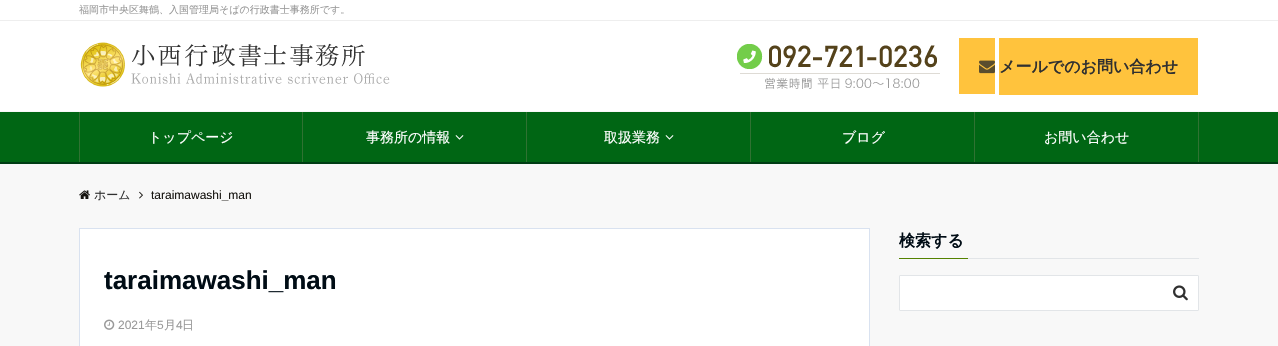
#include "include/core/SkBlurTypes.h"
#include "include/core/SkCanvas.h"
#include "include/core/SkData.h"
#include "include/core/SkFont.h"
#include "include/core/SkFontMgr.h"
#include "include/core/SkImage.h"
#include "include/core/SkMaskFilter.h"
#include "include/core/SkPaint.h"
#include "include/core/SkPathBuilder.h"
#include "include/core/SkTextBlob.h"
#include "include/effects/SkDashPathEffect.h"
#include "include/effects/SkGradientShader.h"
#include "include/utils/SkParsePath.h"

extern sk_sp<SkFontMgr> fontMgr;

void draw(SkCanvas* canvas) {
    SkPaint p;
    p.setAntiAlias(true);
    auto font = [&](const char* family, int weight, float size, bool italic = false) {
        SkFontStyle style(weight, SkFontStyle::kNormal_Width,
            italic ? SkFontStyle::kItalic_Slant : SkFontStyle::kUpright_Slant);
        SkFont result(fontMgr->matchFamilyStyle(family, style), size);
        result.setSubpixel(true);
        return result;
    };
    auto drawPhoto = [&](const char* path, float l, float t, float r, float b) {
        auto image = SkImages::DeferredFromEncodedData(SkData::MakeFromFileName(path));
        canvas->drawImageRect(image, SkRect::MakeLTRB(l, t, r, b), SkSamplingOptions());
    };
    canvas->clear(0xFFF8F8F8);
    p.setColor(0xFFFFFFFF);
    canvas->drawRect(SkRect::MakeLTRB(0, 0, 1278, 20), p);
    p.setColor(0xFFEEEEEE);
    canvas->drawRect(SkRect::MakeLTRB(0, 20, 1278, 21), p);
    auto font1 = font("WenQuanYi Zen Hei", 500, 10);
    p.setColor(0xFF999999);
    canvas->drawString("福岡市中央区舞鶴、入国管理局そばの行政書士事務所です。", 79, 13, font1, p);
    p.setColor(0xFFFFFFFF);
    canvas->drawRect(SkRect::MakeLTRB(0, 21, 1278, 111), p);
    drawPhoto("media/1.png", 80, 42, 390, 87);
    drawPhoto("media/2.png", 737, 44, 940, 89);
    p.setColor(0xFFFFC33D);
    canvas->drawRect(SkRect::MakeLTRB(959, 38, 995, 94), p);
    canvas->drawRect(SkRect::MakeLTRB(999, 38, 1198, 95), p);
    drawPhoto("media/3.png", 979, 60, 995, 74);
    auto font2 = font("WenQuanYi Zen Hei", 700, 16);
    p.setColor(0xFF303030);
    canvas->drawString("メールでのお問い合わせ", 999, 72, font2, p);
    {
        const struct { float l, t, r, b; SkColor color; } items[] = {
            {0, 112, 1278, 162, 0xFF006614},
            {0, 162, 1278, 164, 0xFF003D14},
            {79, 112, 80, 162, 0xFF2F7232},
        };
        for (auto [l, t, r, b, color] : items) {
            p.setColor(color);
            canvas->drawRect(SkRect::MakeLTRB(l, t, r, b), p);
        }
    }
    auto font3 = font("WenQuanYi Zen Hei", 500, 14);
    p.setColor(0xFFFFFFFF);
    canvas->drawString("トップページ", 148, 142, font3, p);
    p.setColor(0xFF2F7232);
    canvas->drawRect(SkRect::MakeLTRB(302, 112, 303, 162), p);
    p.setColor(0xFFFFFFFF);
    canvas->drawString("事務所の情報", 366, 142, font3, p);
    drawPhoto("media/4.png", 455, 135, 464, 140);
    p.setColor(0xFF2F7232);
    canvas->drawRect(SkRect::MakeLTRB(526, 112, 527, 162), p);
    p.setColor(0xFFFFFFFF);
    canvas->drawString("取扱業務", 604, 142, font3, p);
    drawPhoto("media/4.png", 665, 135, 674, 140);
    p.setColor(0xFF2F7232);
    canvas->drawRect(SkRect::MakeLTRB(750, 112, 751, 162), p);
    p.setColor(0xFFFFFFFF);
    canvas->drawString("ブログ", 842, 142, font3, p);
    p.setColor(0xFF2F7232);
    canvas->drawRect(SkRect::MakeLTRB(974, 112, 975, 162), p);
    p.setColor(0xFFFFFFFF);
    canvas->drawString("お問い合わせ", 1044, 142, font3, p);
    p.setColor(0xFF2F7232);
    canvas->drawRect(SkRect::MakeLTRB(1198, 112, 1199, 162), p);
    drawPhoto("media/5.png", 79, 190, 90, 199);
    auto font4 = font("WenQuanYi Zen Hei", 500, 12);
    p.setColor(0xFF303030);
    canvas->drawString("ホーム", 94, 199, font4, p);
    drawPhoto("media/6.png", 139, 191, 143, 199);
    canvas->save();
    canvas->clipRect(SkRect::MakeLTRB(151, 189, 252, 201));
    auto font5 = font("Liberation Sans", 400, 12);
    p.setColor(0xFF161410);
    canvas->drawString("taraimawashi_man", 151, 199, font5, p);
    canvas->restore();
    p.setColor(0xFFE2E5E8);
    canvas->drawRect(SkRect::MakeLTRB(968, 258, 1199, 259), p);
    p.setColor(0xFF548200);
    canvas->drawRect(SkRect::MakeLTRB(899, 258, 968, 259), p);
    p.setColor(0xFF000C15);
    canvas->drawString("検索する", 899, 246, font2, p);
    p.setColor(0xFFFFFFFF);
    canvas->drawRoundRect(SkRect::MakeLTRB(899.5f, 275.5f, 1198.5f, 310.5f), 0.5f, 0.5f, p);
    p.setStyle(SkPaint::kStroke_Style);
    p.setStrokeWidth(1);
    p.setColor(0xFFE2E5E8);
    canvas->drawRoundRect(SkRect::MakeLTRB(899.5f, 275.5f, 1198.5f, 310.5f), 0.5f, 0.5f, p);
    drawPhoto("media/7.png", 1173, 285, 1188, 301);
    p.setStyle(SkPaint::kFill_Style);
    p.setColor(0xFFFFFFFF);
    canvas->drawRect(SkRect::MakeLTRB(79.5f, 228.5f, 869.5f, 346.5f), p);
    p.setStyle(SkPaint::kStroke_Style);
    p.setColor(0xFFD9E2F0);
    canvas->drawRect(SkRect::MakeLTRB(79.5f, 228.5f, 869.5f, 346.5f), p);
    auto font6 = font("Liberation Sans", 700, 26);
    p.setStyle(SkPaint::kFill_Style);
    p.setColor(0xFF000C15);
    canvas->drawString("taraimawashi_man", 104, 289, font6, p);
    drawPhoto("media/8.png", 104, 319, 115, 330);
    p.setColor(0xFF999999);
    canvas->drawString("2021", 118, 329, font5, p);
    canvas->drawString("年", 145, 329, font4, p);
    canvas->drawString("5", 157, 329, font5, p);
    canvas->drawString("月", 164, 329, font4, p);
    canvas->drawString("4", 176, 329, font5, p);
    canvas->drawString("日", 182, 329, font4, p);
}
